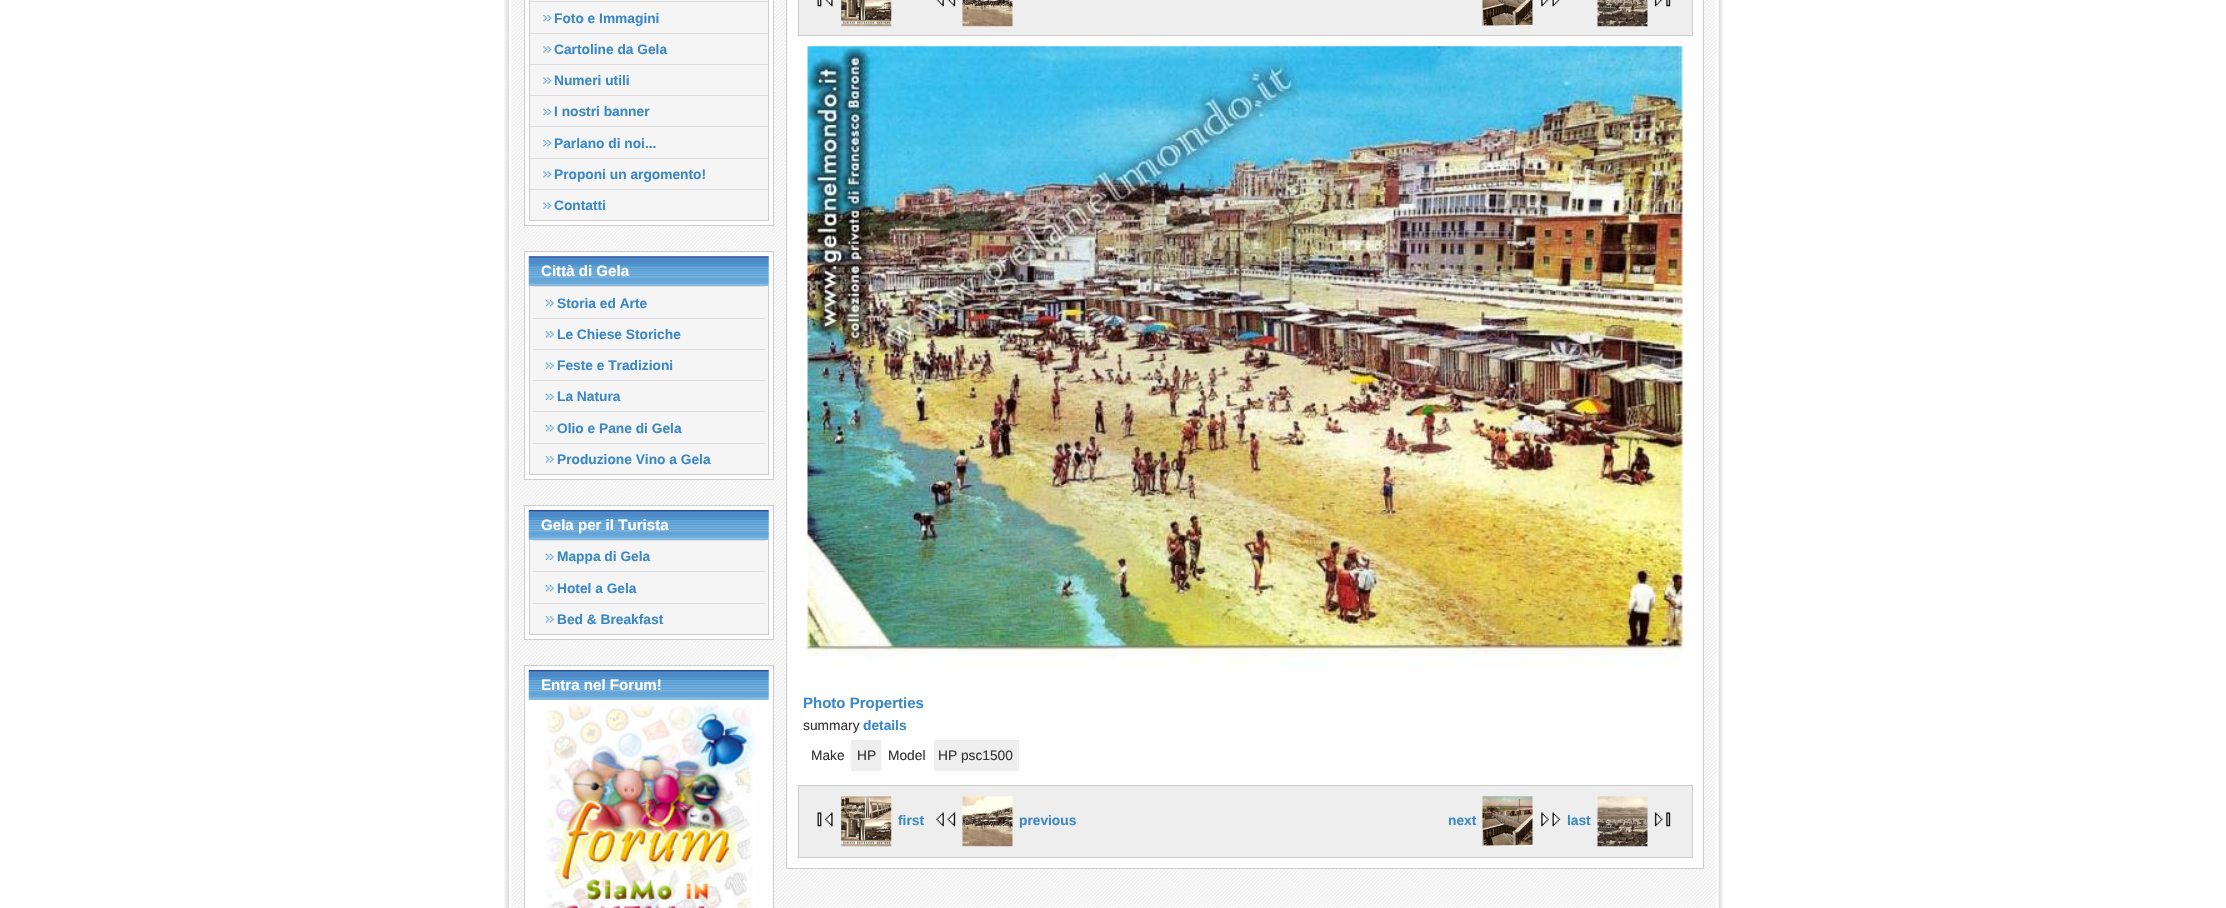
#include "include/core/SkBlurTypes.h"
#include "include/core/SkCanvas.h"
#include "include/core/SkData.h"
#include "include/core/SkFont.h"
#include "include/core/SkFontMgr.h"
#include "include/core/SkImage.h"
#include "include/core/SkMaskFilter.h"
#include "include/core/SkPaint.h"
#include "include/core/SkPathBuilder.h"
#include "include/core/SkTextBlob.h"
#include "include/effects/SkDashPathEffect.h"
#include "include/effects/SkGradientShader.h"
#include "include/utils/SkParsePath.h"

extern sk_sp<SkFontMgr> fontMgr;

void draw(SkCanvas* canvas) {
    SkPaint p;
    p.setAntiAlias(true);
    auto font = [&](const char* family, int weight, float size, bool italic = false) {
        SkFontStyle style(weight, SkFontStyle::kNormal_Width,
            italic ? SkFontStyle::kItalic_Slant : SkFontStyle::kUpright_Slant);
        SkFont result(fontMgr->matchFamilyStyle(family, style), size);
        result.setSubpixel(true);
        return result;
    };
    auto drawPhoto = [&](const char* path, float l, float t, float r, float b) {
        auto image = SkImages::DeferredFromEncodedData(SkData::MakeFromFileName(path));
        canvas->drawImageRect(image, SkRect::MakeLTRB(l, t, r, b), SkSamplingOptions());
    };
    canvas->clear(0xFFFFFFFF);
    drawPhoto("media/1.png", 504, 0, 509, 908);
    drawPhoto("media/2.png", 1718, 0, 1724, 908);
    drawPhoto("media/3.png", 511, 0, 1717, 908);
    p.setColor(0xFFFEFEFE);
    canvas->drawRect(SkRect::MakeLTRB(524.5f, -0.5f, 773.5f, 225.5f), p);
    p.setStyle(SkPaint::kStroke_Style);
    p.setStrokeWidth(1);
    p.setColor(0xFFCCCCCC);
    canvas->drawRect(SkRect::MakeLTRB(524.5f, -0.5f, 773.5f, 225.5f), p);
    p.setStyle(SkPaint::kFill_Style);
    {
        const struct { float l, t, r, b; SkColor color; } items[] = {
            {768, 0, 769, 221, 0xFFCCCCCC},
            {529, 220, 769, 221, 0xFFCCCCCC},
            {529, 0, 530, 221, 0xFFCCCCCC},
            {530, 0, 768, 1, 0xFFF5F5F5},
            {530, 2, 768, 33, 0xFFF5F5F5},
        };
        for (auto [l, t, r, b, color] : items) {
            p.setColor(color);
            canvas->drawRect(SkRect::MakeLTRB(l, t, r, b), p);
        }
    }
    drawPhoto("media/4.png", 543, 15, 552, 22);
    p.setColor(0xFFDDDDDD);
    canvas->drawRect(SkRect::MakeLTRB(530, 1, 768, 2), p);
    auto font1 = font("Liberation Sans", 700, 13.75f);
    p.setColor(0xFF3B88C5);
    canvas->drawString("Foto e Immagini", 554, 23, font1, p);
    p.setColor(0xFFF5F5F5);
    canvas->drawRect(SkRect::MakeLTRB(530, 34, 768, 64), p);
    drawPhoto("media/5.png", 543, 46, 552, 53);
    p.setColor(0xFFDDDDDD);
    canvas->drawRect(SkRect::MakeLTRB(530, 33, 768, 34), p);
    p.setColor(0xFF3B88C5);
    canvas->drawString("Cartoline da Gela", 554, 54, font1, p);
    p.setColor(0xFFF5F5F5);
    canvas->drawRect(SkRect::MakeLTRB(530, 65, 768, 95), p);
    drawPhoto("media/6.png", 543, 77, 552, 84);
    p.setColor(0xFFDDDDDD);
    canvas->drawRect(SkRect::MakeLTRB(530, 64, 768, 65), p);
    p.setColor(0xFF3B88C5);
    canvas->drawString("Numeri utili", 554, 85, font1, p);
    p.setColor(0xFFF5F5F5);
    canvas->drawRect(SkRect::MakeLTRB(530, 96, 768, 126), p);
    drawPhoto("media/7.png", 543, 108, 552, 115);
    p.setColor(0xFFDDDDDD);
    canvas->drawRect(SkRect::MakeLTRB(530, 95, 768, 96), p);
    p.setColor(0xFF3B88C5);
    canvas->drawString("I nostri banner", 554, 116, font1, p);
    p.setColor(0xFFF5F5F5);
    canvas->drawRect(SkRect::MakeLTRB(530, 127, 768, 158), p);
    drawPhoto("media/4.png", 543, 140, 552, 147);
    p.setColor(0xFFDDDDDD);
    canvas->drawRect(SkRect::MakeLTRB(530, 126, 768, 127), p);
    p.setColor(0xFF3B88C5);
    canvas->drawString("Parlano di noi...", 554, 148, font1, p);
    p.setColor(0xFFF5F5F5);
    canvas->drawRect(SkRect::MakeLTRB(530, 159, 768, 189), p);
    drawPhoto("media/5.png", 543, 171, 552, 178);
    p.setColor(0xFFDDDDDD);
    canvas->drawRect(SkRect::MakeLTRB(530, 158, 768, 159), p);
    p.setColor(0xFF3B88C5);
    canvas->drawString("Proponi un argomento!", 554, 179, font1, p);
    p.setColor(0xFFF5F5F5);
    canvas->drawRect(SkRect::MakeLTRB(530, 190, 768, 220), p);
    drawPhoto("media/8.png", 543, 202, 552, 209);
    p.setColor(0xFFDDDDDD);
    canvas->drawRect(SkRect::MakeLTRB(530, 189, 768, 190), p);
    p.setColor(0xFF3B88C5);
    canvas->drawString("Contatti", 554, 210, font1, p);
    p.setColor(0xFFFEFEFE);
    canvas->drawRect(SkRect::MakeLTRB(524.5f, 251.5f, 773.5f, 479.5f), p);
    p.setStyle(SkPaint::kStroke_Style);
    p.setColor(0xFFCCCCCC);
    canvas->drawRect(SkRect::MakeLTRB(524.5f, 251.5f, 773.5f, 479.5f), p);
    drawPhoto("media/9.png", 528, 256, 769, 287);
    auto font2 = font("Liberation Sans", 700, 15.1f);
    p.setStyle(SkPaint::kFill_Style);
    p.setColor(0xFFFEFEFE);
    canvas->drawString("Città di Gela", 541, 276, font2, p);
    {
        const struct { float l, t, r, b; SkColor color; } items[] = {
            {768, 286, 769, 475, 0xFFCCCCCC},
            {529, 474, 769, 475, 0xFFCCCCCC},
            {529, 286, 530, 475, 0xFFCCCCCC},
            {530, 286, 768, 474, 0xFFF5F5F5},
        };
        for (auto [l, t, r, b, color] : items) {
            p.setColor(color);
            canvas->drawRect(SkRect::MakeLTRB(l, t, r, b), p);
        }
    }
    drawPhoto("media/10.png", 545, 300, 554, 307);
    p.setColor(0xFFDDDDDD);
    canvas->drawRect(SkRect::MakeLTRB(533, 286, 765, 287), p);
    p.setColor(0xFF3B88C5);
    canvas->drawString("Storia ed Arte", 557, 308, font1, p);
    drawPhoto("media/11.png", 545, 331, 554, 338);
    p.setColor(0xFFDDDDDD);
    canvas->drawRect(SkRect::MakeLTRB(533, 318, 765, 319), p);
    p.setColor(0xFF3B88C5);
    canvas->drawString("Le Chiese Storiche", 557, 339, font1, p);
    drawPhoto("media/12.png", 545, 362, 554, 369);
    p.setColor(0xFFDDDDDD);
    canvas->drawRect(SkRect::MakeLTRB(533, 349, 765, 350), p);
    p.setColor(0xFF3B88C5);
    canvas->drawString("Feste e Tradizioni", 557, 370, font1, p);
    drawPhoto("media/13.png", 545, 393, 554, 400);
    p.setColor(0xFFDDDDDD);
    canvas->drawRect(SkRect::MakeLTRB(533, 380, 765, 381), p);
    p.setColor(0xFF3B88C5);
    canvas->drawString("La Natura", 557, 401, font1, p);
    drawPhoto("media/10.png", 545, 425, 554, 432);
    p.setColor(0xFFDDDDDD);
    canvas->drawRect(SkRect::MakeLTRB(533, 411, 765, 412), p);
    p.setColor(0xFF3B88C5);
    canvas->drawString("Olio e Pane di Gela", 557, 433, font1, p);
    drawPhoto("media/11.png", 545, 456, 554, 463);
    p.setColor(0xFFDDDDDD);
    canvas->drawRect(SkRect::MakeLTRB(533, 443, 765, 444), p);
    p.setColor(0xFF3B88C5);
    canvas->drawString("Produzione Vino a Gela", 557, 464, font1, p);
    p.setColor(0xFFFEFEFE);
    canvas->drawRect(SkRect::MakeLTRB(524.5f, 505.5f, 773.5f, 639.5f), p);
    p.setStyle(SkPaint::kStroke_Style);
    p.setColor(0xFFCCCCCC);
    canvas->drawRect(SkRect::MakeLTRB(524.5f, 505.5f, 773.5f, 639.5f), p);
    drawPhoto("media/14.png", 528, 510, 769, 540);
    p.setStyle(SkPaint::kFill_Style);
    p.setColor(0xFFFEFEFE);
    canvas->drawString("Gela per il Turista", 541, 530, font2, p);
    {
        const struct { float l, t, r, b; SkColor color; } items[] = {
            {768, 540, 769, 635, 0xFFCCCCCC},
            {529, 634, 769, 635, 0xFFCCCCCC},
            {529, 540, 530, 635, 0xFFCCCCCC},
            {530, 540, 768, 634, 0xFFF5F5F5},
        };
        for (auto [l, t, r, b, color] : items) {
            p.setColor(color);
            canvas->drawRect(SkRect::MakeLTRB(l, t, r, b), p);
        }
    }
    drawPhoto("media/13.png", 545, 553, 554, 560);
    p.setColor(0xFFDDDDDD);
    canvas->drawRect(SkRect::MakeLTRB(533, 540, 765, 541), p);
    p.setColor(0xFF3B88C5);
    canvas->drawString("Mappa di Gela", 557, 561, font1, p);
    drawPhoto("media/10.png", 545, 585, 554, 592);
    p.setColor(0xFFDDDDDD);
    canvas->drawRect(SkRect::MakeLTRB(533, 571, 765, 572), p);
    p.setColor(0xFF3B88C5);
    canvas->drawString("Hotel a Gela", 557, 593, font1, p);
    drawPhoto("media/11.png", 545, 616, 554, 623);
    p.setColor(0xFFDDDDDD);
    canvas->drawRect(SkRect::MakeLTRB(533, 603, 765, 604), p);
    p.setColor(0xFF3B88C5);
    canvas->drawString("Bed & Breakfast", 557, 624, font1, p);
    p.setColor(0xFFFEFEFE);
    canvas->drawRect(SkRect::MakeLTRB(524.5f, 665.5f, 773.5f, 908.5f), p);
    p.setStyle(SkPaint::kStroke_Style);
    p.setColor(0xFFCCCCCC);
    canvas->drawRect(SkRect::MakeLTRB(524.5f, 665.5f, 773.5f, 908.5f), p);
    drawPhoto("media/14.png", 528, 670, 769, 700);
    p.setStyle(SkPaint::kFill_Style);
    p.setColor(0xFFFEFEFE);
    canvas->drawString("Entra nel Forum!", 541, 690, font2, p);
    drawPhoto("media/15.png", 543, 700, 755, 908);
    p.setColor(0xFFFFFFFF);
    canvas->drawRect(SkRect::MakeLTRB(786.5f, -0.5f, 1703.5f, 868.5f), p);
    p.setStyle(SkPaint::kStroke_Style);
    p.setColor(0xFFCCCCCC);
    canvas->drawRect(SkRect::MakeLTRB(786.5f, -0.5f, 1703.5f, 868.5f), p);
    p.setStyle(SkPaint::kFill_Style);
    p.setColor(0xFFEEEEEE);
    canvas->drawRect(SkRect::MakeLTRB(798.5f, -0.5f, 1692.5f, 35.5f), p);
    p.setStyle(SkPaint::kStroke_Style);
    p.setColor(0xFFCCCCCC);
    canvas->drawRect(SkRect::MakeLTRB(798.5f, -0.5f, 1692.5f, 35.5f), p);
    drawPhoto("media/16.png", 817, 0, 833, 7);
    drawPhoto("media/17.png", 841, 0, 892, 27);
    drawPhoto("media/18.png", 936, 0, 956, 7);
    drawPhoto("media/19.png", 962, 0, 1013, 27);
    drawPhoto("media/20.png", 1482, 0, 1533, 27);
    drawPhoto("media/21.png", 1541, 0, 1560, 7);
    drawPhoto("media/22.png", 1597, 0, 1648, 27);
    drawPhoto("media/23.png", 1654, 0, 1671, 7);
    drawPhoto("media/24.png", 807, 46, 1683, 666);
    auto font3 = font("Liberation Sans", 700, 15);
    p.setStyle(SkPaint::kFill_Style);
    p.setColor(0xFF3B88C5);
    canvas->drawString("Photo Properties", 803, 708, font3, p);
    auto font4 = font("Liberation Sans", 400, 13.75f);
    p.setColor(0xFF333333);
    canvas->drawString("summary", 803, 730, font4, p);
    p.setColor(0xFF3B88C5);
    canvas->drawString("details", 863, 730, font1, p);
    p.setColor(0xFF333333);
    canvas->drawString("Make", 811, 760, font4, p);
    p.setColor(0xFFEEEEEE);
    canvas->drawRect(SkRect::MakeLTRB(851, 740, 881, 771), p);
    p.setColor(0xFF333333);
    canvas->drawString("HP", 857, 760, font4, p);
    canvas->drawString("Model", 888, 760, font4, p);
    p.setColor(0xFFEEEEEE);
    canvas->drawRect(SkRect::MakeLTRB(934, 740, 1019, 771), p);
    p.setColor(0xFF333333);
    canvas->drawString("HP psc1500", 938, 760, font4, p);
    p.setColor(0xFFEEEEEE);
    canvas->drawRect(SkRect::MakeLTRB(798.5f, 785.5f, 1692.5f, 857.5f), p);
    p.setStyle(SkPaint::kStroke_Style);
    p.setColor(0xFFCCCCCC);
    canvas->drawRect(SkRect::MakeLTRB(798.5f, 785.5f, 1692.5f, 857.5f), p);
    drawPhoto("media/25.png", 817, 812, 833, 827);
    drawPhoto("media/26.png", 841, 796, 892, 847);
    p.setStyle(SkPaint::kFill_Style);
    p.setColor(0xFF3B88C5);
    canvas->drawString("first", 898, 825, font1, p);
    drawPhoto("media/27.png", 936, 812, 956, 827);
    drawPhoto("media/28.png", 962, 796, 1013, 847);
    canvas->drawString("previous", 1019, 825, font1, p);
    canvas->drawString("next", 1448, 825, font1, p);
    drawPhoto("media/29.png", 1482, 796, 1533, 847);
    drawPhoto("media/30.png", 1541, 812, 1561, 827);
    canvas->drawString("last", 1567, 825, font1, p);
    drawPhoto("media/31.png", 1597, 796, 1648, 847);
    drawPhoto("media/32.png", 1654, 812, 1671, 827);
}
